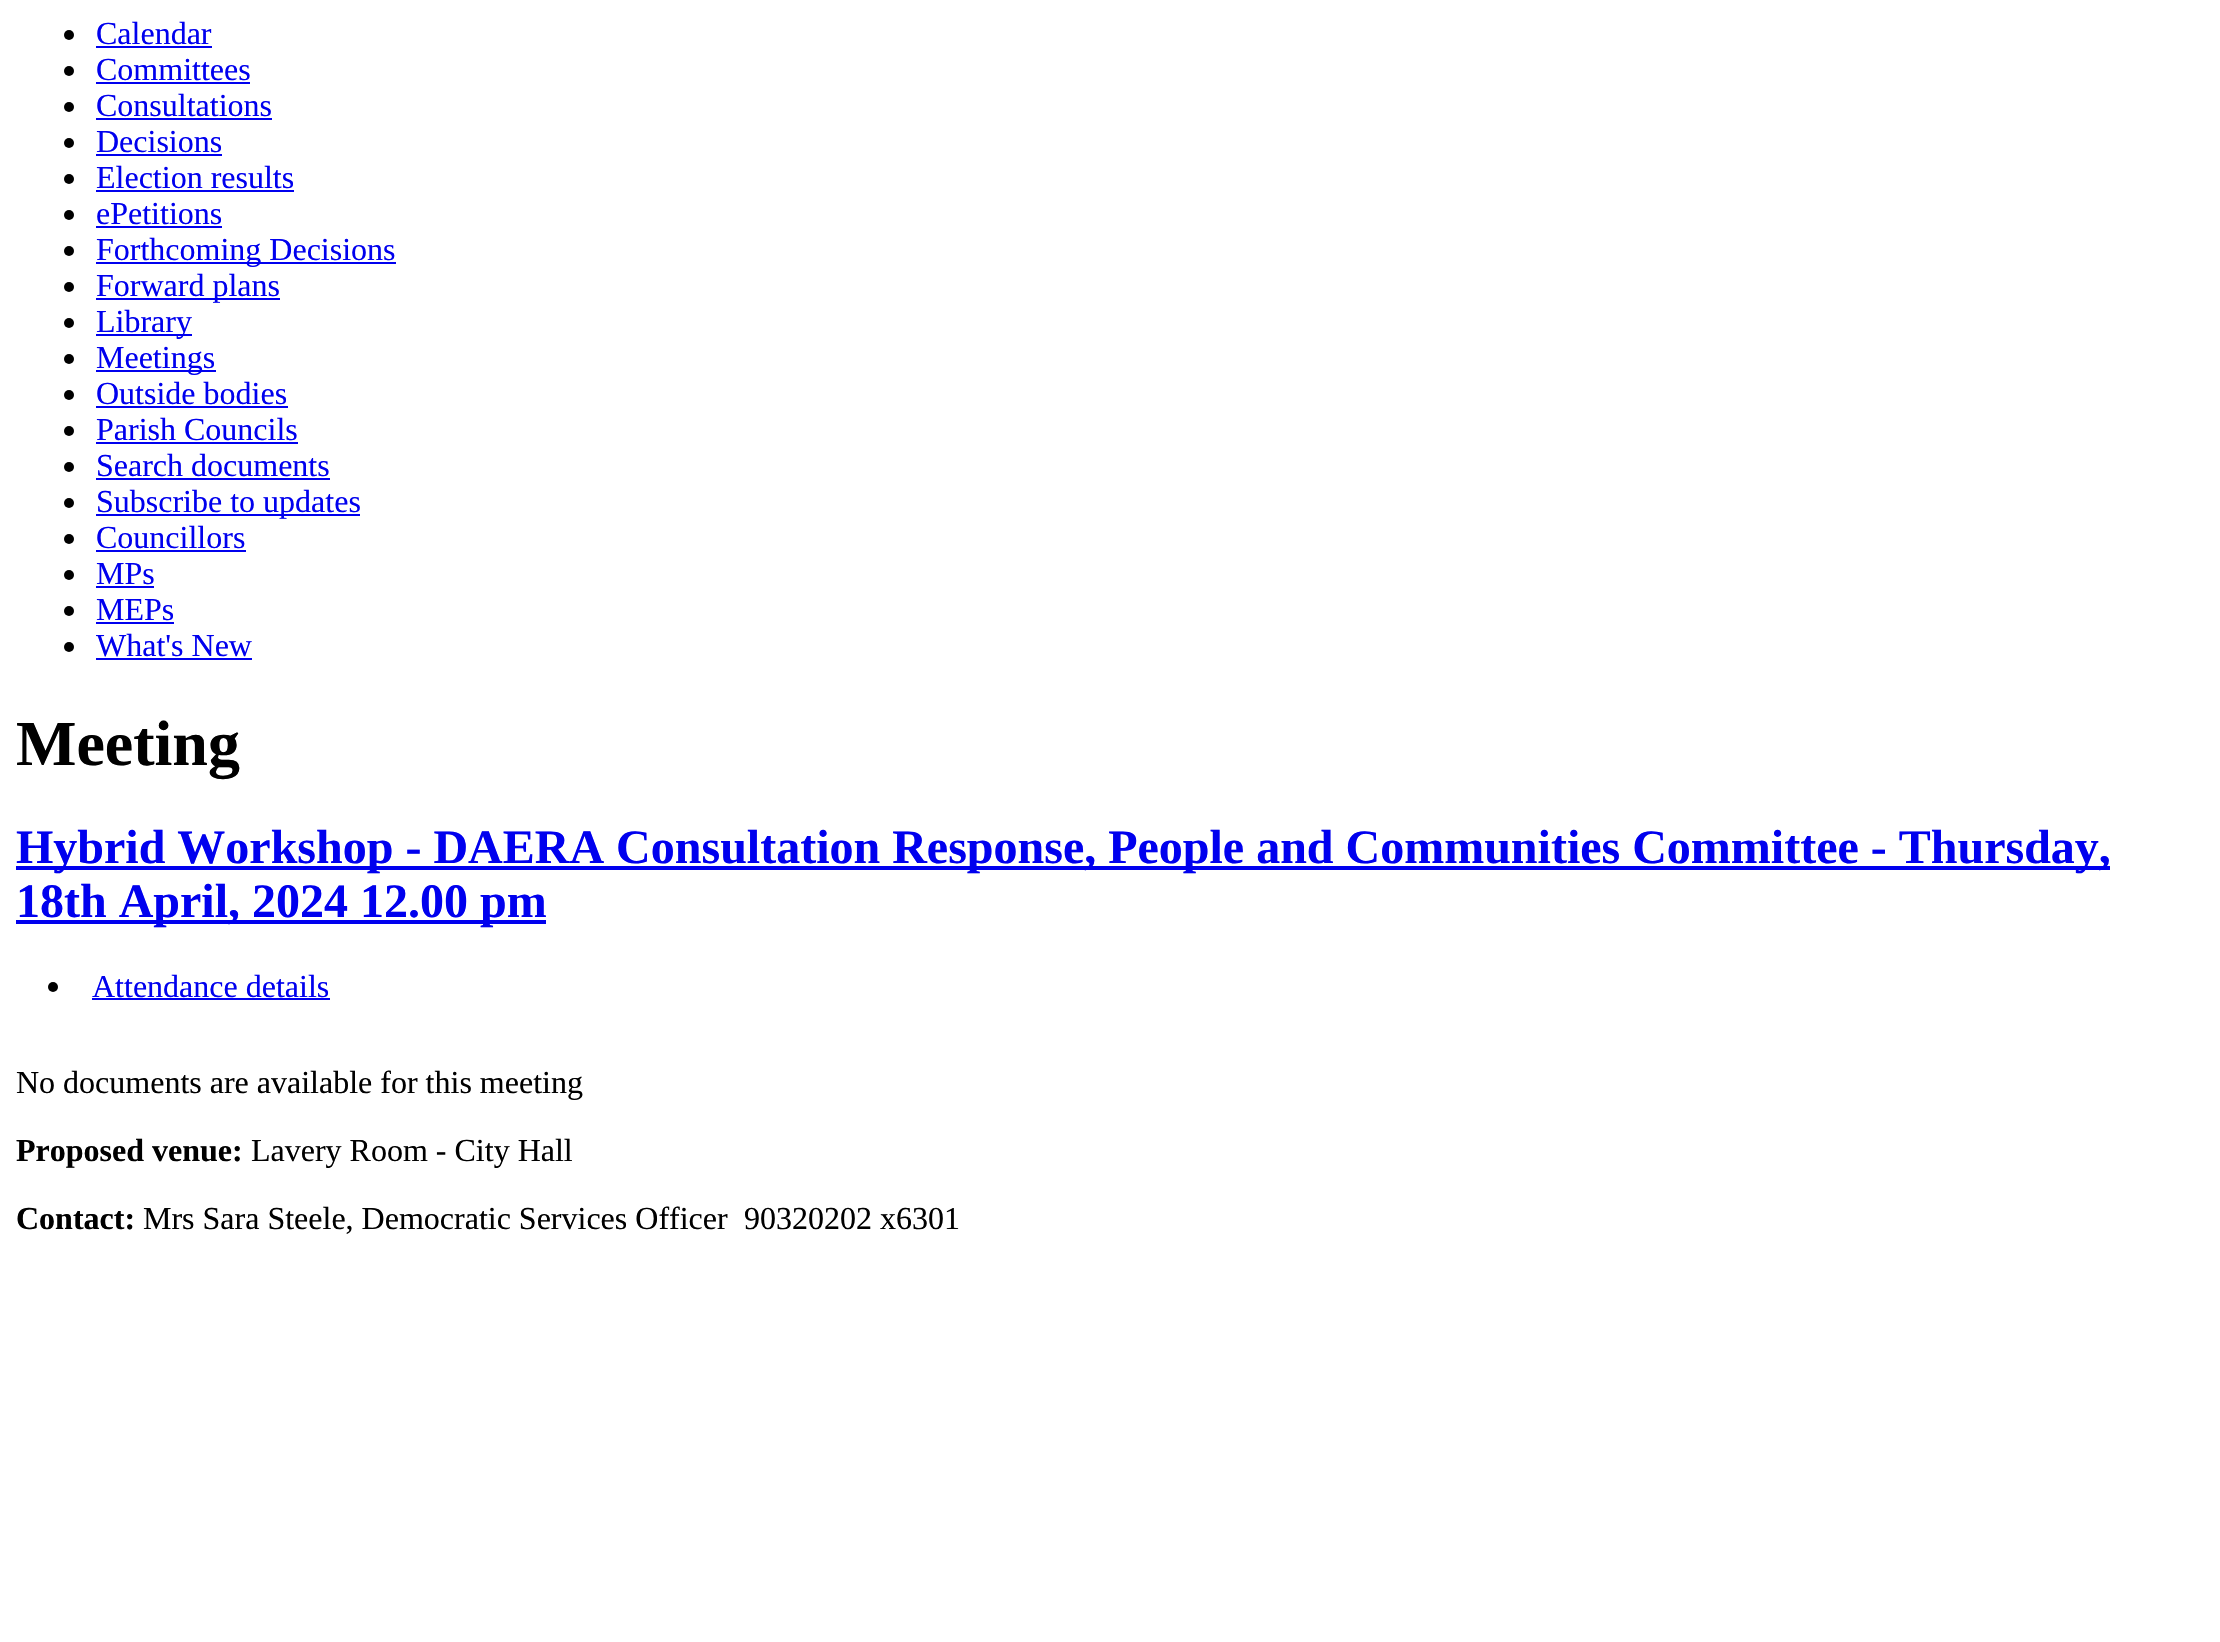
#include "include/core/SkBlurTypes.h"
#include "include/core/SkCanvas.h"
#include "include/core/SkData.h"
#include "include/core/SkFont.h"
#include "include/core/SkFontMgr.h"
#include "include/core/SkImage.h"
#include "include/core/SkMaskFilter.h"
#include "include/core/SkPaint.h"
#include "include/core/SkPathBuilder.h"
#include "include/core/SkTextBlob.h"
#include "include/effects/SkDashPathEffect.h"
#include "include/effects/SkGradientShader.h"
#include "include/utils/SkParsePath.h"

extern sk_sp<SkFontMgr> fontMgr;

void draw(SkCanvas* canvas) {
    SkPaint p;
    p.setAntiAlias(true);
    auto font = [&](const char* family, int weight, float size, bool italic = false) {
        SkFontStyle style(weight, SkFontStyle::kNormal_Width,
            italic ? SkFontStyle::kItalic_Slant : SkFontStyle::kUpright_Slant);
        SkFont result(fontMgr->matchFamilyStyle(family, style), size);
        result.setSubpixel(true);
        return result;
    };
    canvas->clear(0xFFFFFFFF);
    p.setColor(0xFF000000);
    canvas->drawCircle(69, 35, 5, p);
    auto font1 = font("Liberation Serif", 400, 32);
    p.setColor(0xFF0000EE);
    canvas->drawString("Calendar", 96, 44, font1, p);
    canvas->drawRect(SkRect::MakeLTRB(96, 46, 212, 48), p);
    p.setColor(0xFF000000);
    canvas->drawCircle(69, 71, 5, p);
    p.setColor(0xFF0000EE);
    canvas->drawString("Committees", 96, 80, font1, p);
    canvas->drawRect(SkRect::MakeLTRB(96, 82, 250, 84), p);
    p.setColor(0xFF000000);
    canvas->drawCircle(69, 107, 5, p);
    p.setColor(0xFF0000EE);
    canvas->drawString("Consultations", 96, 116, font1, p);
    canvas->drawRect(SkRect::MakeLTRB(96, 118, 272, 120), p);
    p.setColor(0xFF000000);
    canvas->drawCircle(69, 143, 5, p);
    p.setColor(0xFF0000EE);
    canvas->drawString("Decisions", 96, 152, font1, p);
    canvas->drawRect(SkRect::MakeLTRB(96, 154, 222, 156), p);
    p.setColor(0xFF000000);
    canvas->drawCircle(69, 179, 5, p);
    p.setColor(0xFF0000EE);
    canvas->drawString("Election results", 96, 188, font1, p);
    canvas->drawRect(SkRect::MakeLTRB(96, 190, 294, 192), p);
    p.setColor(0xFF000000);
    canvas->drawCircle(69, 215, 5, p);
    p.setColor(0xFF0000EE);
    canvas->drawString("ePetitions", 96, 224, font1, p);
    canvas->drawRect(SkRect::MakeLTRB(96, 226, 222, 228), p);
    p.setColor(0xFF000000);
    canvas->drawCircle(69, 251, 5, p);
    p.setColor(0xFF0000EE);
    canvas->drawRect(SkRect::MakeLTRB(96, 262, 396, 264), p);
    canvas->drawString("Forthcoming Decisions", 96, 260, font1, p);
    p.setColor(0xFF000000);
    canvas->drawCircle(69, 287, 5, p);
    p.setColor(0xFF0000EE);
    canvas->drawRect(SkRect::MakeLTRB(96, 298, 280, 300), p);
    canvas->drawString("Forward plans", 96, 296, font1, p);
    p.setColor(0xFF000000);
    canvas->drawCircle(69, 323, 5, p);
    p.setColor(0xFF0000EE);
    canvas->drawRect(SkRect::MakeLTRB(96, 334, 192, 336), p);
    canvas->drawString("Library", 96, 332, font1, p);
    p.setColor(0xFF000000);
    canvas->drawCircle(69, 359, 5, p);
    p.setColor(0xFF0000EE);
    canvas->drawRect(SkRect::MakeLTRB(96, 370, 216, 372), p);
    canvas->drawString("Meetings", 96, 368, font1, p);
    p.setColor(0xFF000000);
    canvas->drawCircle(69, 395, 5, p);
    p.setColor(0xFF0000EE);
    canvas->drawString("Outside bodies", 96, 404, font1, p);
    canvas->drawRect(SkRect::MakeLTRB(96, 406, 288, 408), p);
    p.setColor(0xFF000000);
    canvas->drawCircle(69, 431, 5, p);
    p.setColor(0xFF0000EE);
    canvas->drawString("Parish Councils", 96, 440, font1, p);
    canvas->drawRect(SkRect::MakeLTRB(96, 442, 298, 444), p);
    p.setColor(0xFF000000);
    canvas->drawCircle(69, 467, 5, p);
    p.setColor(0xFF0000EE);
    canvas->drawString("Search documents", 96, 476, font1, p);
    canvas->drawRect(SkRect::MakeLTRB(96, 478, 330, 480), p);
    p.setColor(0xFF000000);
    canvas->drawCircle(69, 503, 5, p);
    p.setColor(0xFF0000EE);
    canvas->drawRect(SkRect::MakeLTRB(96, 514, 360, 516), p);
    canvas->drawString("Subscribe to updates", 96, 512, font1, p);
    p.setColor(0xFF000000);
    canvas->drawCircle(69, 539, 5, p);
    p.setColor(0xFF0000EE);
    canvas->drawString("Councillors", 96, 548, font1, p);
    canvas->drawRect(SkRect::MakeLTRB(96, 550, 246, 552), p);
    p.setColor(0xFF000000);
    canvas->drawCircle(69, 575, 5, p);
    p.setColor(0xFF0000EE);
    canvas->drawString("MPs", 96, 584, font1, p);
    canvas->drawRect(SkRect::MakeLTRB(96, 586, 154, 588), p);
    p.setColor(0xFF000000);
    canvas->drawCircle(69, 611, 5, p);
    p.setColor(0xFF0000EE);
    canvas->drawString("MEPs", 96, 620, font1, p);
    canvas->drawRect(SkRect::MakeLTRB(96, 622, 174, 624), p);
    p.setColor(0xFF000000);
    canvas->drawCircle(69, 647, 5, p);
    p.setColor(0xFF0000EE);
    canvas->drawString("What's New", 96, 656, font1, p);
    canvas->drawRect(SkRect::MakeLTRB(96, 658, 252, 660), p);
    auto font2 = font("Liberation Serif", 700, 64);
    p.setColor(0xFF000000);
    canvas->drawString("Meeting", 16, 765, font2, p);
    p.setColor(0xFF0000EE);
    canvas->drawRect(SkRect::MakeLTRB(16, 866, 2110, 870), p);
    auto font3 = font("Liberation Serif", 700, 48);
    canvas->drawString("Hybrid Workshop - DAERA Consultation Response, People and Communities Committee - Thursday,", 16, 863, font3, p);
    canvas->drawRect(SkRect::MakeLTRB(16, 920, 546, 924), p);
    canvas->drawString("18th April, 2024 12.00 pm", 16, 917, font3, p);
    p.setColor(0xFF000000);
    canvas->drawCircle(53, 987, 5, p);
    p.setColor(0xFF0000EE);
    canvas->drawString("Attendance details", 92, 997, font1, p);
    canvas->drawRect(SkRect::MakeLTRB(92, 998, 330, 1000), p);
    p.setColor(0xFF000000);
    canvas->drawString("No documents are available for this meeting", 16, 1093, font1, p);
    auto font4 = font("Liberation Serif", 700, 32);
    canvas->drawString("Proposed venue:", 16, 1161, font4, p);
    canvas->drawString("Lavery Room - City Hall", 251, 1161, font1, p);
    canvas->drawString("Contact:", 16, 1229, font4, p);
    canvas->drawString("Mrs Sara Steele, Democratic Services Officer", 143, 1229, font1, p);
    canvas->drawString("90320202 x6301", 744, 1229, font1, p);
}
